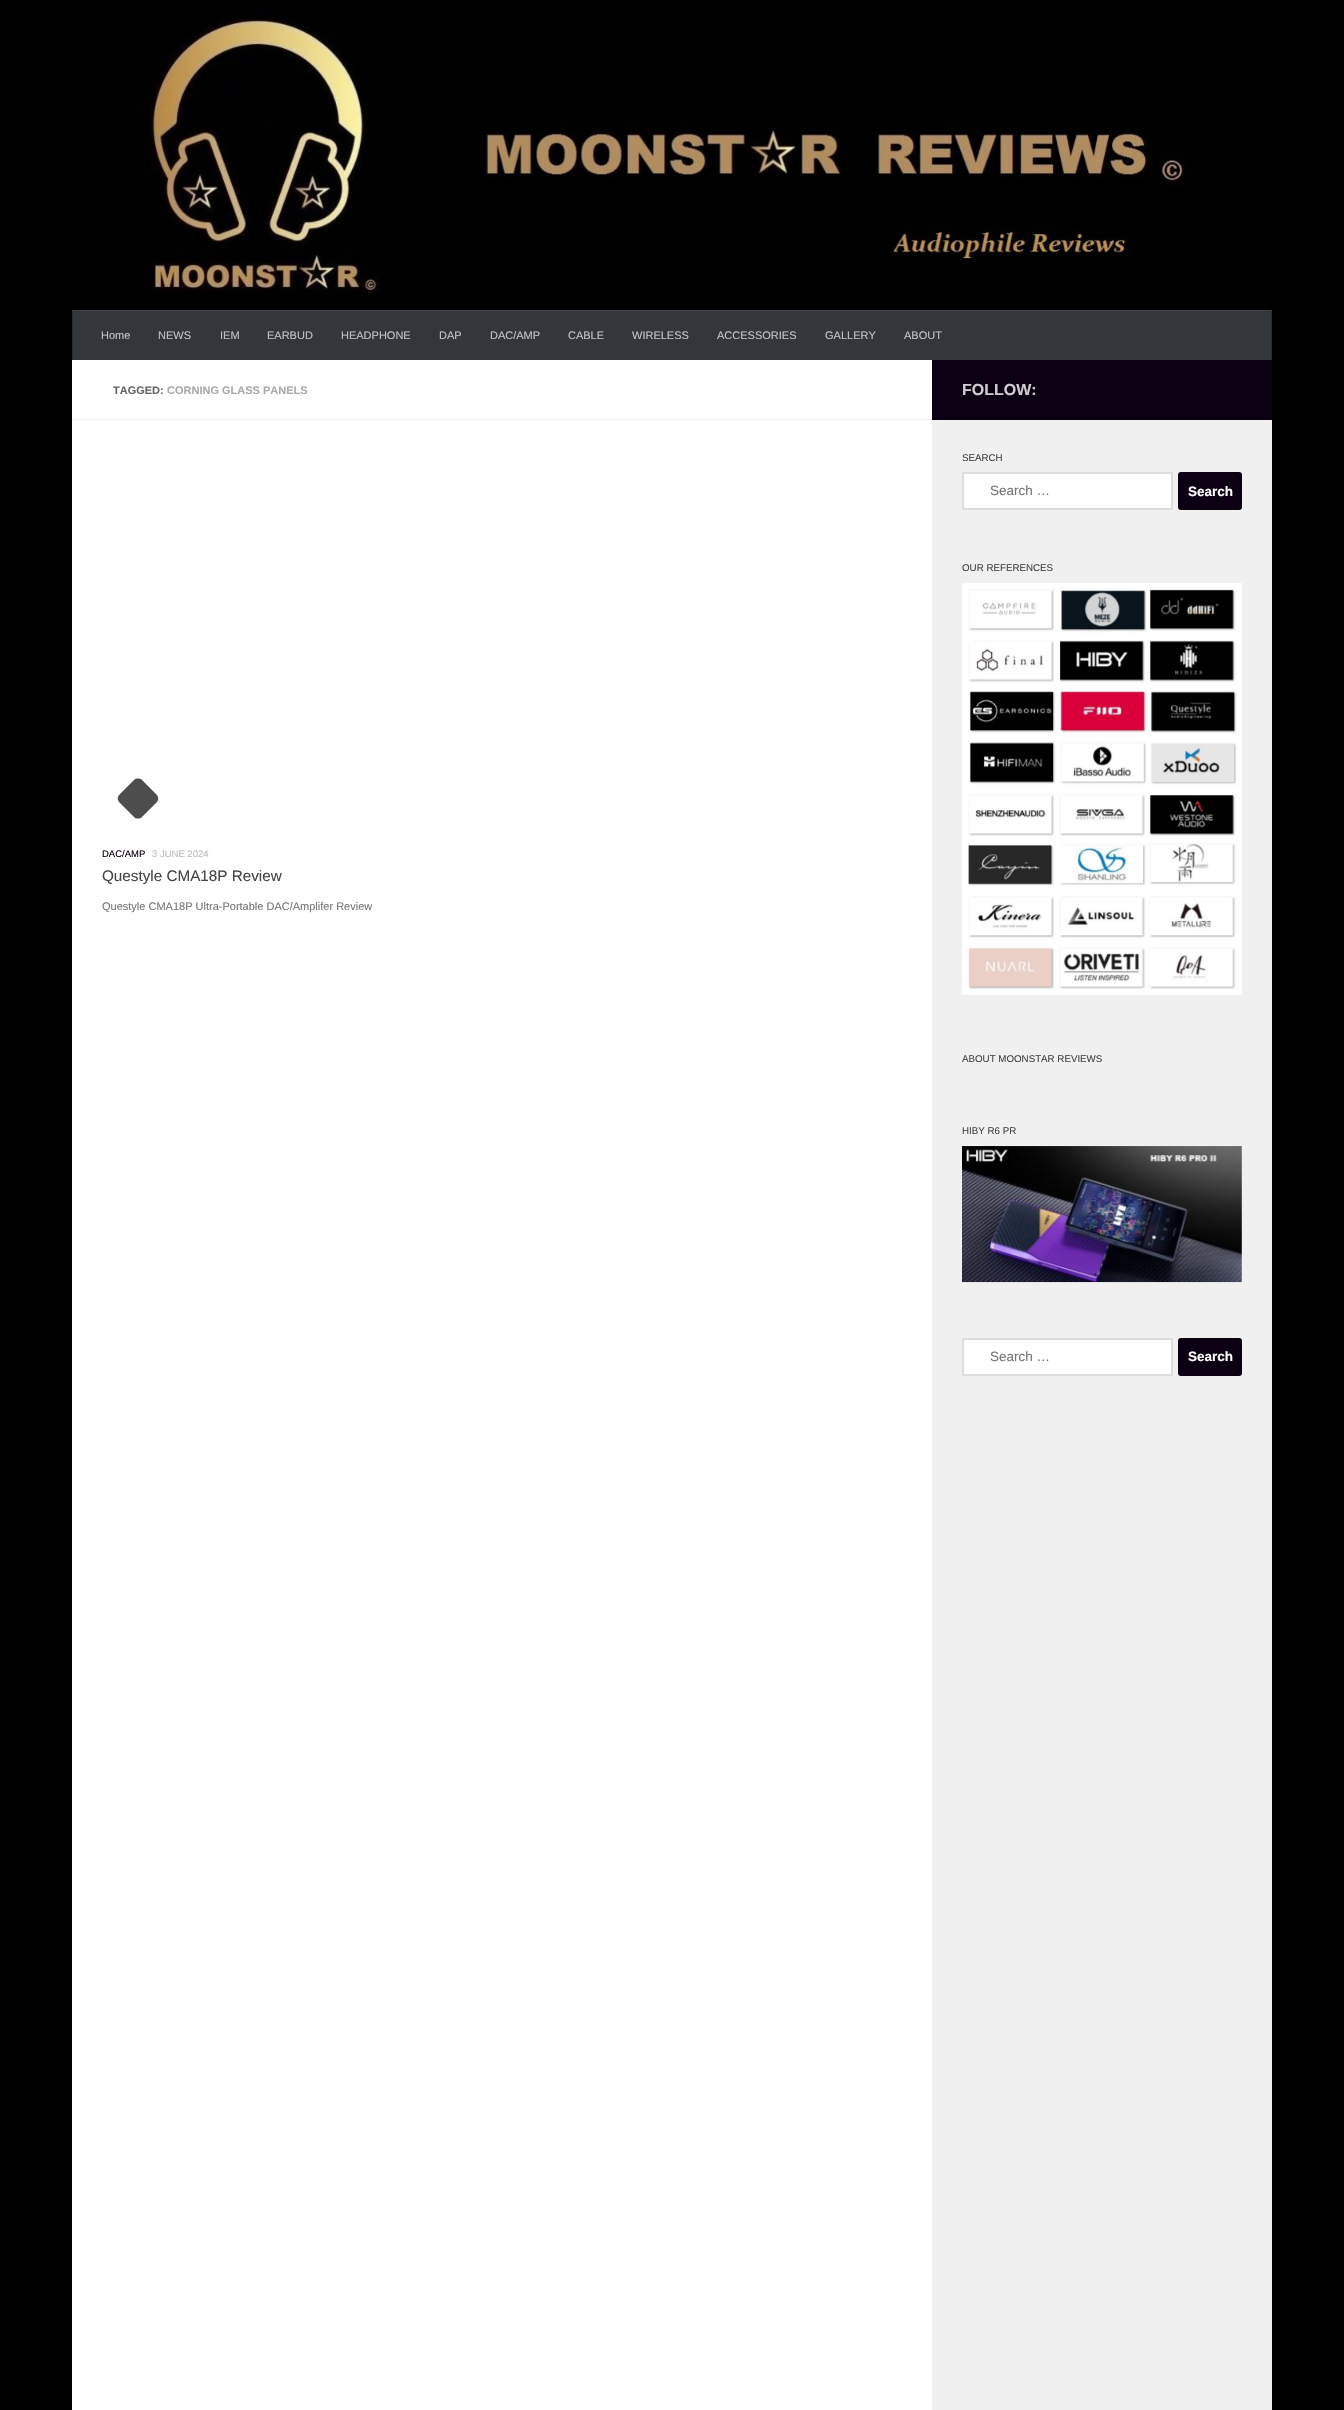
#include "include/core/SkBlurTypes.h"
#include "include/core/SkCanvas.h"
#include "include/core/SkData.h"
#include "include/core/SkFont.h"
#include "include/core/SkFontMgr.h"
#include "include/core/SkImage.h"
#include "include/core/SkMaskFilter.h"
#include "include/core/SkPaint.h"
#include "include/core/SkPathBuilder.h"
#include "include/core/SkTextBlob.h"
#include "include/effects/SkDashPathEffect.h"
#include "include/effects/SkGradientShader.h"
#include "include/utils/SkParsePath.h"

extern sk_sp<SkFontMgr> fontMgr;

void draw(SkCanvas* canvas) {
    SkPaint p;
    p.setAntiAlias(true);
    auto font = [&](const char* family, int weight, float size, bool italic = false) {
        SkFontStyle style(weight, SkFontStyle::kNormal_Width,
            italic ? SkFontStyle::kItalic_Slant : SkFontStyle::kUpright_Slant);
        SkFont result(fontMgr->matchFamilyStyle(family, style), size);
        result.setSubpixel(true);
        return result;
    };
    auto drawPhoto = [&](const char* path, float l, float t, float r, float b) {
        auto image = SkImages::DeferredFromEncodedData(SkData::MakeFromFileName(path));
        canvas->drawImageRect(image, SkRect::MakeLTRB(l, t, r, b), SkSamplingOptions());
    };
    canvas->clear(0xFF000000);
    p.setColor(0xFF33363B);
    canvas->drawRect(SkRect::MakeLTRB(73, 311, 1271, 360), p);
    p.setColor(0xFF3D4045);
    canvas->drawRect(SkRect::MakeLTRB(72, 310, 1272, 311), p);
    drawPhoto("media/1.png", 72, 0, 1272, 310);
    {
        const struct { float l, t, r, b; SkColor color; } items[] = {
            {1271, 310, 1272, 360, 0xFF292B2F},
            {1271, 310, 1272, 311, 0xFF343639},
            {72, 310, 73, 360, 0xFF292B2F},
            {72, 310, 73, 311, 0xFF343639},
        };
        for (auto [l, t, r, b, color] : items) {
            p.setColor(color);
            canvas->drawRect(SkRect::MakeLTRB(l, t, r, b), p);
        }
    }
    auto font1 = font("Liberation Sans", 400, 11);
    p.setColor(0xFFC2C3C4);
    {
        const struct { const char* s; float x, y; } items[] = {
            {"Home", 101, 339},
            {"NEWS", 158, 339},
            {"IEM", 220, 339},
            {"EARBUD", 267, 339},
            {"HEADPHONE", 341, 339},
            {"DAP", 439, 339},
            {"DAC/AMP", 490, 339},
            {"CABLE", 568, 339},
            {"WIRELESS", 632, 339},
            {"ACCESSORIES", 717, 339},
            {"GALLERY", 825, 339},
            {"ABOUT", 904, 339},
        };
        for (auto [s, x, y] : items) {
            canvas->drawString(s, x, y, font1, p);
        }
    }
    p.setColor(0xFFFFFFFF);
    canvas->drawRect(SkRect::MakeLTRB(72, 360, 932, 2410), p);
    p.setColor(0xFFEEEEEE);
    canvas->drawRect(SkRect::MakeLTRB(72, 419, 932, 420), p);
    auto font2 = font("Liberation Sans", 700, 11);
    p.setColor(0xFF666666);
    canvas->drawString("TAGGED:", 113, 394, font2, p);
    p.setColor(0xFFAAAAAA);
    canvas->drawString("CORNING GLASS PANELS", 167, 394, font2, p);
    p.setColor(0xFF4D4D4D);
    canvas->drawPath(SkPathBuilder().moveTo(142, 780).lineTo(156, 794).cubicTo(159, 797, 159, 800, 156, 803).lineTo(142, 817).cubicTo(140, 819, 136, 819, 134, 817).lineTo(120, 803).cubicTo(117, 800, 117, 797, 120, 794).lineTo(134, 780).cubicTo(136, 778, 140, 778, 142, 780).close().detach(), p);
    auto font3 = font("Liberation Sans", 400, 9.5f);
    p.setColor(0xFF0B0011);
    canvas->drawString("DAC/AMP", 102, 857, font3, p);
    p.setColor(0xFFBBBBBB);
    canvas->drawString("3 JUNE 2024", 152, 857, font3, p);
    auto font4 = font("Liberation Sans", 400, 15.25f);
    p.setColor(0xFF444444);
    canvas->drawString("Questyle CMA18P Review", 102, 881, font4, p);
    p.setColor(0xFF767676);
    canvas->drawString("Questyle CMA18P Ultra-Portable DAC/Amplifer Review", 102, 910, font1, p);
    p.setColor(0xFF0B0011);
    canvas->drawRect(SkRect::MakeLTRB(932, 360, 1272, 420), p);
    auto font5 = font("Liberation Sans", 700, 16);
    p.setColor(0xFFCECCCF);
    canvas->drawString("FOLLOW:", 962, 395, font5, p);
    p.setColor(0xFFF0F0F0);
    canvas->drawRect(SkRect::MakeLTRB(932, 420, 1272, 2410), p);
    auto font6 = font("Liberation Sans", 400, 9.75f);
    p.setColor(0xFF444444);
    canvas->drawString("SEARCH", 962, 461, font6, p);
    p.setColor(0xFFFFFFFF);
    canvas->drawRect(SkRect::MakeLTRB(963, 473, 1172, 509), p);
    p.setStyle(SkPaint::kStroke_Style);
    p.setStrokeWidth(2);
    p.setColor(0xFFDDDDDD);
    canvas->drawRect(SkRect::MakeLTRB(963, 473, 1172, 509), p);
    auto font7 = font("Liberation Sans", 400, 13.5f);
    p.setStyle(SkPaint::kFill_Style);
    p.setColor(0xFF767676);
    canvas->drawString("Search …", 990, 495, font7, p);
    p.setColor(0xFF0B0011);
    canvas->drawRoundRect(SkRect::MakeLTRB(1178, 472, 1242, 510), 3, 3, p);
    auto font8 = font("Liberation Sans", 700, 13.5f);
    p.setColor(0xFFFFFFFF);
    canvas->drawString("Search", 1188, 496, font8, p);
    p.setColor(0xFF444444);
    canvas->drawString("OUR REFERENCES", 962, 571, font6, p);
    drawPhoto("media/2.png", 962, 583, 1242, 995);
    canvas->drawString("ABOUT MOONSTAR REVIEWS", 962, 1062, font6, p);
    canvas->drawString("HIBY R6 PR", 962, 1134, font6, p);
    drawPhoto("media/3.png", 962, 1146, 1242, 1283);
    p.setColor(0xFFFFFFFF);
    canvas->drawRect(SkRect::MakeLTRB(963, 1339, 1172, 1375), p);
    p.setStyle(SkPaint::kStroke_Style);
    p.setColor(0xFFDDDDDD);
    canvas->drawRect(SkRect::MakeLTRB(963, 1339, 1172, 1375), p);
    p.setStyle(SkPaint::kFill_Style);
    p.setColor(0xFF767676);
    canvas->drawString("Search …", 990, 1361, font7, p);
    p.setColor(0xFF0B0011);
    canvas->drawRoundRect(SkRect::MakeLTRB(1178, 1338, 1242, 1376), 3, 3, p);
    p.setColor(0xFFFFFFFF);
    canvas->drawString("Search", 1188, 1361, font8, p);
}
